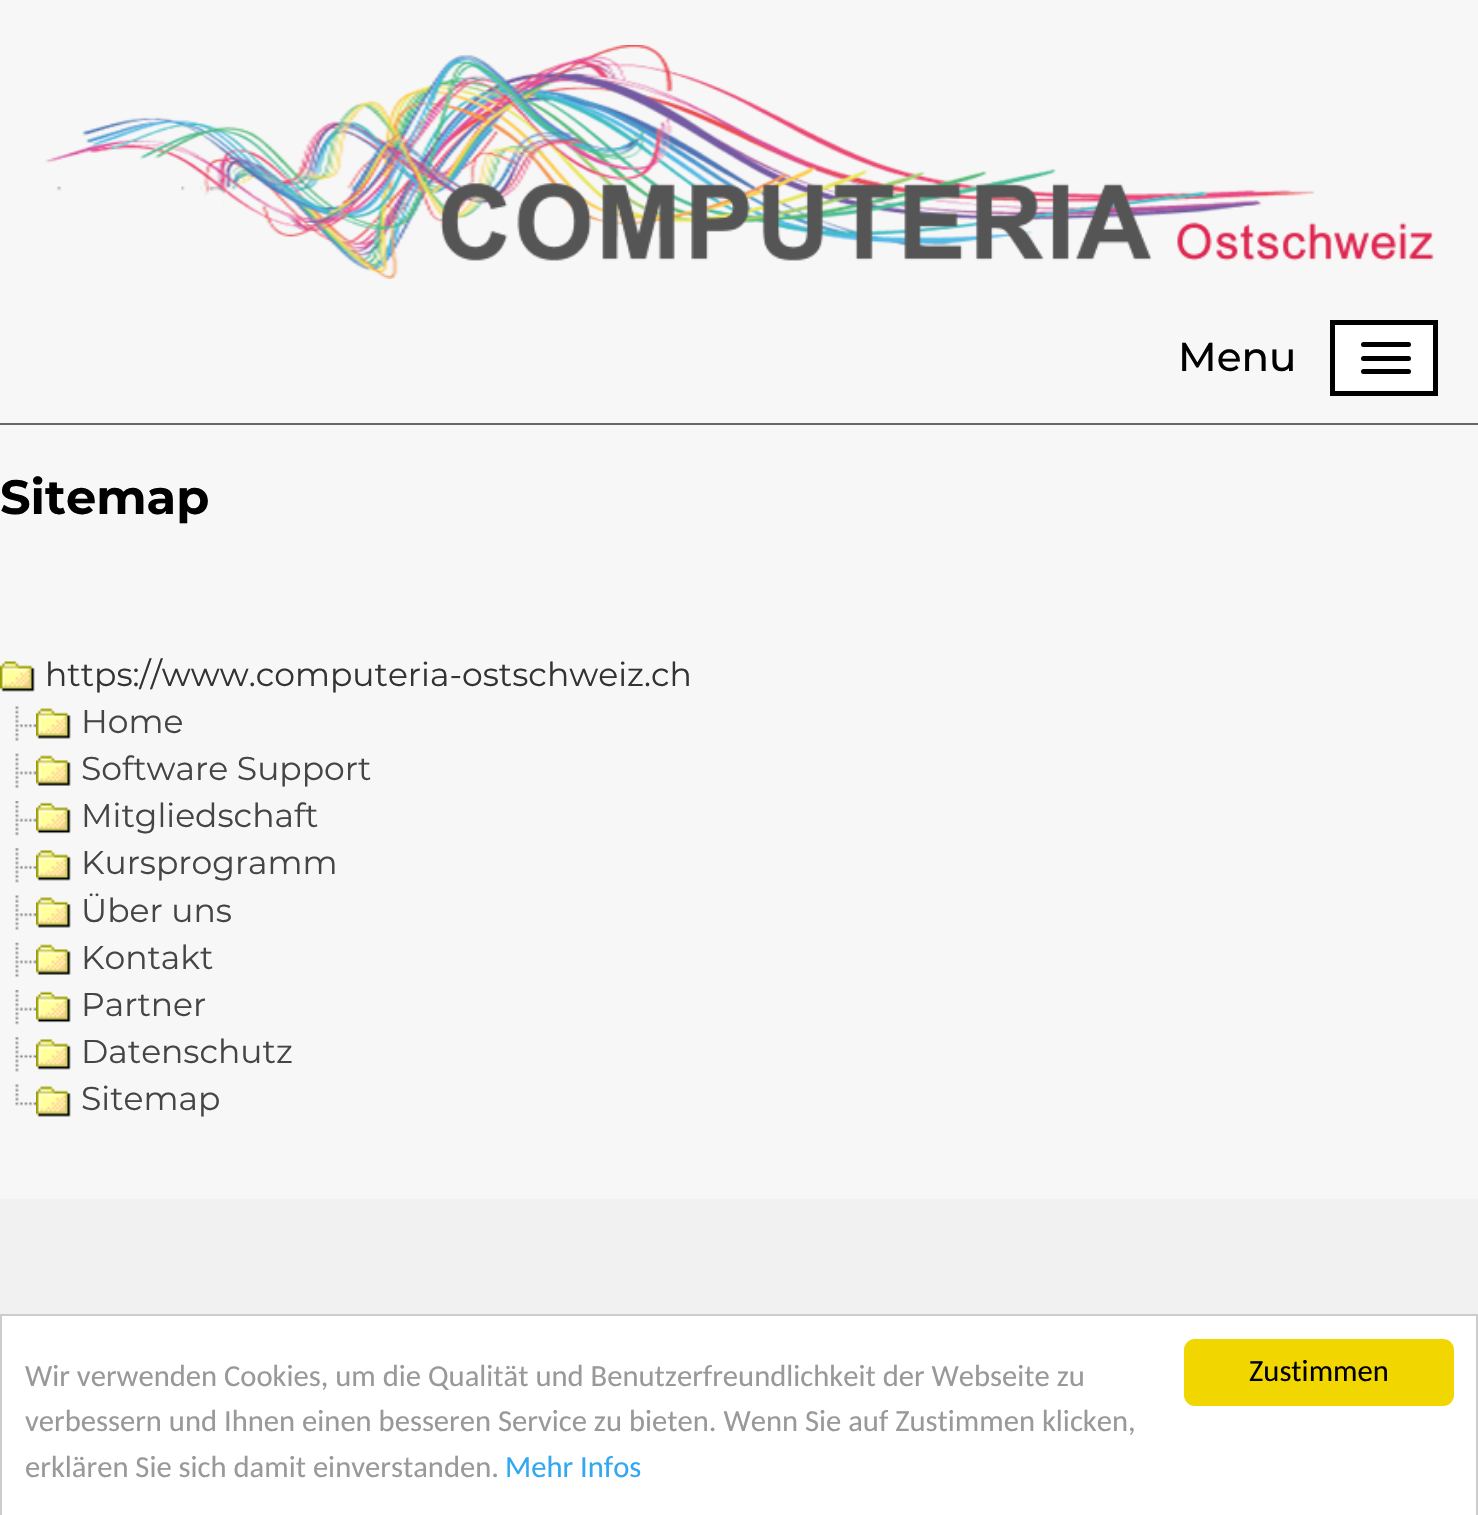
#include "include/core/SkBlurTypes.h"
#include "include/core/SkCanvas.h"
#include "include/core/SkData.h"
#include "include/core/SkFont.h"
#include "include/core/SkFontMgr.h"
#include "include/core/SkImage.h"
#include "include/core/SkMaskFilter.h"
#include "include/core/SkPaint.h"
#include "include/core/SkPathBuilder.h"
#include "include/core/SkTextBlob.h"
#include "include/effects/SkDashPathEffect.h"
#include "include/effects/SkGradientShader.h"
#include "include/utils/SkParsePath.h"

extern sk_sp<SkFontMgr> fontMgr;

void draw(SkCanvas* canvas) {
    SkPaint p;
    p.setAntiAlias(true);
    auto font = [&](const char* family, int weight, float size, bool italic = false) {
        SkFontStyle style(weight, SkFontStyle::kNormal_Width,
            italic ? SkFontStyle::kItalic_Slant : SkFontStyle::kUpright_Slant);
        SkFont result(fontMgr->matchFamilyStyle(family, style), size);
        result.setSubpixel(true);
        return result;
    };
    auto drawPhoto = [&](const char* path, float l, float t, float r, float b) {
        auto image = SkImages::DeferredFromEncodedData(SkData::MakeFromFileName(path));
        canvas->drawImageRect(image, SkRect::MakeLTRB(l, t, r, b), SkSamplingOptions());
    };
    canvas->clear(0xFFF7F7F7);
    p.setColor(0xFF666666);
    canvas->drawRect(SkRect::MakeLTRB(0, 423, 1478, 425), p);
    drawPhoto("media/1.png", 45, 45, 1434, 279);
    auto font1 = font("Montserrat", 500, 40.5f);
    p.setColor(0xFF000000);
    canvas->drawString("Menu", 1178, 371, font1, p);
    p.setColor(0xFFFFFFFF);
    canvas->drawRect(SkRect::MakeLTRB(1332.5f, 322.5f, 1435.5f, 393.5f), p);
    p.setStyle(SkPaint::kStroke_Style);
    p.setStrokeWidth(5);
    p.setColor(0xFF000000);
    canvas->drawRect(SkRect::MakeLTRB(1332.5f, 322.5f, 1435.5f, 393.5f), p);
    p.setStyle(SkPaint::kFill_Style);
    canvas->drawRoundRect(SkRect::MakeLTRB(1361, 342, 1411, 347), 2.5f, 2.5f, p);
    canvas->drawRoundRect(SkRect::MakeLTRB(1361, 356, 1411, 361), 2.5f, 2.5f, p);
    canvas->drawRoundRect(SkRect::MakeLTRB(1361, 369, 1411, 374), 2.5f, 2.5f, p);
    auto font2 = font("Montserrat", 700, 48);
    canvas->drawString("Sitemap", 0, 514, font2, p);
    drawPhoto("media/2.png", 0, 661, 35, 692);
    auto font3 = font("Montserrat", 400, 33);
    p.setColor(0xFF333333);
    canvas->drawString("https://www.computeria-ostschweiz.ch", 45, 686, font3, p);
    drawPhoto("media/3.png", 15, 706, 36, 741);
    drawPhoto("media/4.png", 36, 708, 71, 739);
    p.setColor(0xFF454545);
    canvas->drawString("Home", 81, 733, font3, p);
    drawPhoto("media/5.png", 15, 753, 36, 789);
    drawPhoto("media/6.png", 36, 755, 71, 786);
    canvas->drawString("Software Support", 81, 780, font3, p);
    drawPhoto("media/7.png", 15, 801, 36, 836);
    drawPhoto("media/8.png", 36, 802, 71, 834);
    canvas->drawString("Mitgliedschaft", 81, 827, font3, p);
    drawPhoto("media/9.png", 15, 848, 36, 883);
    drawPhoto("media/2.png", 36, 850, 71, 881);
    canvas->drawString("Kursprogramm", 81, 874, font3, p);
    drawPhoto("media/3.png", 15, 895, 36, 930);
    drawPhoto("media/4.png", 36, 897, 71, 928);
    canvas->drawString("Über uns", 81, 922, font3, p);
    drawPhoto("media/5.png", 15, 942, 36, 978);
    drawPhoto("media/6.png", 36, 944, 71, 975);
    canvas->drawString("Kontakt", 81, 969, font3, p);
    drawPhoto("media/7.png", 15, 990, 36, 1025);
    drawPhoto("media/8.png", 36, 991, 71, 1023);
    canvas->drawString("Partner", 81, 1016, font3, p);
    drawPhoto("media/9.png", 15, 1037, 36, 1072);
    drawPhoto("media/2.png", 36, 1039, 71, 1070);
    canvas->drawString("Datenschutz", 81, 1063, font3, p);
    drawPhoto("media/10.png", 15, 1084, 36, 1106);
    drawPhoto("media/4.png", 36, 1086, 71, 1117);
    canvas->drawString("Sitemap", 81, 1110, font3, p);
    p.setColor(0xFFF1F1F1);
    canvas->drawRect(SkRect::MakeLTRB(0, 1199, 1478, 1314), p);
    p.setColor(0xFFFFFFFF);
    canvas->drawRect(SkRect::MakeLTRB(1, 1315, 1477, 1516), p);
    p.setStyle(SkPaint::kStroke_Style);
    p.setStrokeWidth(2);
    p.setColor(0xFFCCCCCC);
    canvas->drawRect(SkRect::MakeLTRB(1, 1315, 1477, 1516), p);
    auto font4 = font("Carlito", 400, 30.6f);
    p.setStyle(SkPaint::kFill_Style);
    p.setColor(0xFF999999);
    {
        const struct { const char* s; float x, y; } items[] = {
            {"Wir verwenden Cookies, um die Qualität und Benutzerfreundlichkeit der Webseite zu", 25, 1386},
            {"verbessern und Ihnen einen besseren Service zu bieten. Wenn Sie auf Zustimmen klicken,", 25, 1431},
            {"erklären Sie sich damit einverstanden.", 25, 1477},
        };
        for (auto [s, x, y] : items) {
            canvas->drawString(s, x, y, font4, p);
        }
    }
    p.setColor(0xFF31A8F0);
    canvas->drawString("Mehr Infos", 505, 1477, font4, p);
    p.setColor(0xFFF1D600);
    canvas->drawRoundRect(SkRect::MakeLTRB(1184, 1339, 1454, 1406), 11, 11, p);
    p.setColor(0xFF000000);
    canvas->drawString("Zustimmen", 1249, 1381, font4, p);
}
